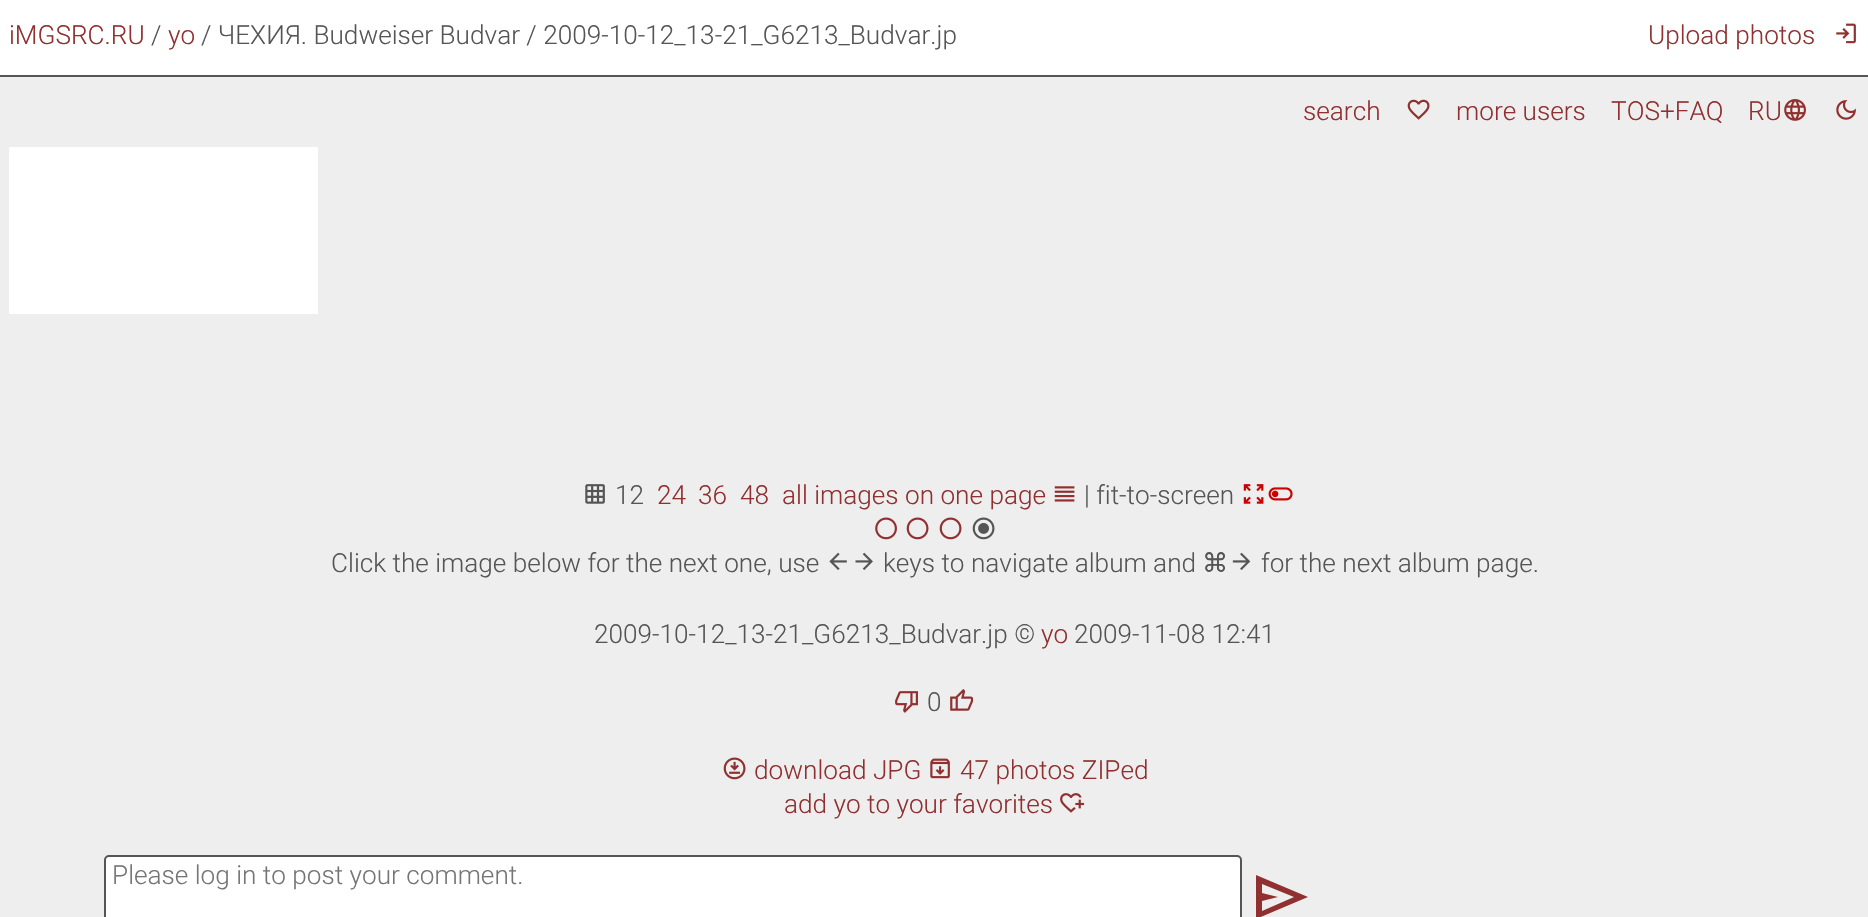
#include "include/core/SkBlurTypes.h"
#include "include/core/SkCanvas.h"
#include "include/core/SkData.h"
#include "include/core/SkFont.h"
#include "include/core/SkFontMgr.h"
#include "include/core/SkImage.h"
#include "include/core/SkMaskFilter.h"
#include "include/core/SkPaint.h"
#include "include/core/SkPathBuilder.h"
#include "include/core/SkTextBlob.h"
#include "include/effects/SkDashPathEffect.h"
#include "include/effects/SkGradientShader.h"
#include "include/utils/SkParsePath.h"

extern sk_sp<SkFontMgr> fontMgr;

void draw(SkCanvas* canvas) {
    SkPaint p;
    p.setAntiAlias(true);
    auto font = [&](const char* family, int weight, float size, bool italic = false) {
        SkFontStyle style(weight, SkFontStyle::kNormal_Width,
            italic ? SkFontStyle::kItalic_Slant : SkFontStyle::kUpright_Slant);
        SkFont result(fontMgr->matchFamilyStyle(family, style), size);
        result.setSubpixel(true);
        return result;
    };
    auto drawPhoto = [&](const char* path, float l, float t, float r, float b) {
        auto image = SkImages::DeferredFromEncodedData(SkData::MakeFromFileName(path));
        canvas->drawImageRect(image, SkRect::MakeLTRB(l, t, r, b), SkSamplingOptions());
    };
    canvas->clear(0xFFFFFFFF);
    p.setColor(0xFF555555);
    canvas->drawRect(SkRect::MakeLTRB(0, 75, 1868, 77), p);
    auto font1 = font("Roboto", 300, 26.2f);
    p.setColor(0xFF903030);
    canvas->drawString("iMGSRC.RU", 9, 44, font1, p);
    p.setColor(0xFF555555);
    canvas->drawString("/", 151, 44, font1, p);
    p.setColor(0xFF903030);
    canvas->drawString("yo", 168, 44, font1, p);
    p.setColor(0xFF555555);
    canvas->drawString("/ ЧЕХИЯ. Budweiser Budvar / 2009-10-12_13-21_G6213_Budvar.jp", 201, 44, font1, p);
    p.setColor(0xFF903030);
    canvas->drawString("Upload photos", 1648, 44, font1, p);
    drawPhoto("media/1.png", 1836, 23, 1856, 44);
    p.setColor(0xFFEEEEEE);
    canvas->drawRect(SkRect::MakeLTRB(0, 77, 1868, 917), p);
    p.setColor(0xFF903030);
    canvas->drawString("search", 1303, 120, font1, p);
    drawPhoto("media/2.png", 1407, 99, 1430, 120);
    {
        const struct { const char* s; float x, y; } items[] = {
            {"more users", 1456, 120},
            {"TOS+FAQ", 1611, 120},
            {"RU", 1748, 120},
        };
        for (auto [s, x, y] : items) {
            canvas->drawString(s, x, y, font1, p);
        }
    }
    drawPhoto("media/3.png", 1784, 99, 1806, 121);
    drawPhoto("media/4.png", 1836, 100, 1856, 120);
    p.setColor(0xFFFFFFFF);
    canvas->drawRect(SkRect::MakeLTRB(9, 147, 318, 314), p);
    drawPhoto("media/5.png", 585, 484, 605, 504);
    p.setColor(0xFF555555);
    canvas->drawString("12", 615, 504, font1, p);
    p.setColor(0xFF903030);
    {
        const struct { const char* s; float x, y; } items[] = {
            {"24", 657, 504},
            {"36", 698, 504},
            {"48", 740, 504},
            {"all images on one page", 782, 504},
        };
        for (auto [s, x, y] : items) {
            canvas->drawString(s, x, y, font1, p);
        }
    }
    drawPhoto("media/6.png", 1054, 486, 1075, 502);
    p.setColor(0xFF555555);
    canvas->drawString("| fit-to-screen", 1084, 504, font1, p);
    drawPhoto("media/7.png", 1243, 484, 1264, 504);
    drawPhoto("media/8.png", 1268, 487, 1293, 501);
    drawPhoto("media/9.png", 875, 517, 897, 540);
    drawPhoto("media/10.png", 906, 517, 929, 540);
    drawPhoto("media/10.png", 939, 517, 962, 540);
    drawPhoto("media/11.png", 972, 517, 995, 540);
    canvas->drawString("Click the image below for the next one, use", 331, 572, font1, p);
    drawPhoto("media/12.png", 829, 552, 873, 570);
    canvas->drawString("keys to navigate album and", 883, 572, font1, p);
    auto font2 = font("DejaVu Sans", 400, 26.2f);
    canvas->drawString("⌘", 1202, 572, font2, p);
    drawPhoto("media/13.png", 1232, 552, 1251, 570);
    canvas->drawString("for the next album page.", 1261, 572, font1, p);
    canvas->drawString("2009-10-12_13-21_G6213_Budvar.jp ©", 594, 643, font1, p);
    p.setColor(0xFF903030);
    canvas->drawString("yo", 1041, 643, font1, p);
    p.setColor(0xFF555555);
    canvas->drawString("2009-11-08 12:41", 1074, 643, font1, p);
    drawPhoto("media/14.png", 895, 691, 918, 713);
    canvas->drawString("0", 927, 711, font1, p);
    drawPhoto("media/15.png", 950, 689, 974, 711);
    drawPhoto("media/16.png", 723, 757, 746, 780);
    p.setColor(0xFF903030);
    canvas->drawString("download JPG", 754, 779, font1, p);
    drawPhoto("media/17.png", 930, 758, 950, 779);
    canvas->drawString("47 photos ZIPed", 960, 779, font1, p);
    canvas->drawString("add yo to your favorites", 784, 813, font1, p);
    drawPhoto("media/18.png", 1060, 793, 1085, 813);
    p.setColor(0xFFFFFFFF);
    canvas->drawRoundRect(SkRect::MakeLTRB(105, 856, 1241, 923), 4, 4, p);
    p.setStyle(SkPaint::kStroke_Style);
    p.setStrokeWidth(2);
    p.setColor(0xFF555555);
    canvas->drawRoundRect(SkRect::MakeLTRB(105, 856, 1241, 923), 4, 4, p);
    p.setStyle(SkPaint::kFill_Style);
    p.setColor(0xFF757575);
    canvas->drawString("Please log in to post your comment.", 112, 884, font1, p);
    p.setColor(0xFF903030);
    canvas->drawPath(SkPathBuilder().moveTo(1256, 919).lineTo(1256, 875).lineTo(1308, 897).close().moveTo(1262, 911).lineTo(1294, 897).lineTo(1262, 884).lineTo(1262, 893).lineTo(1278, 897).lineTo(1262, 901).close().moveTo(1262, 911).lineTo(1262, 884).close().detach(), p);
}
